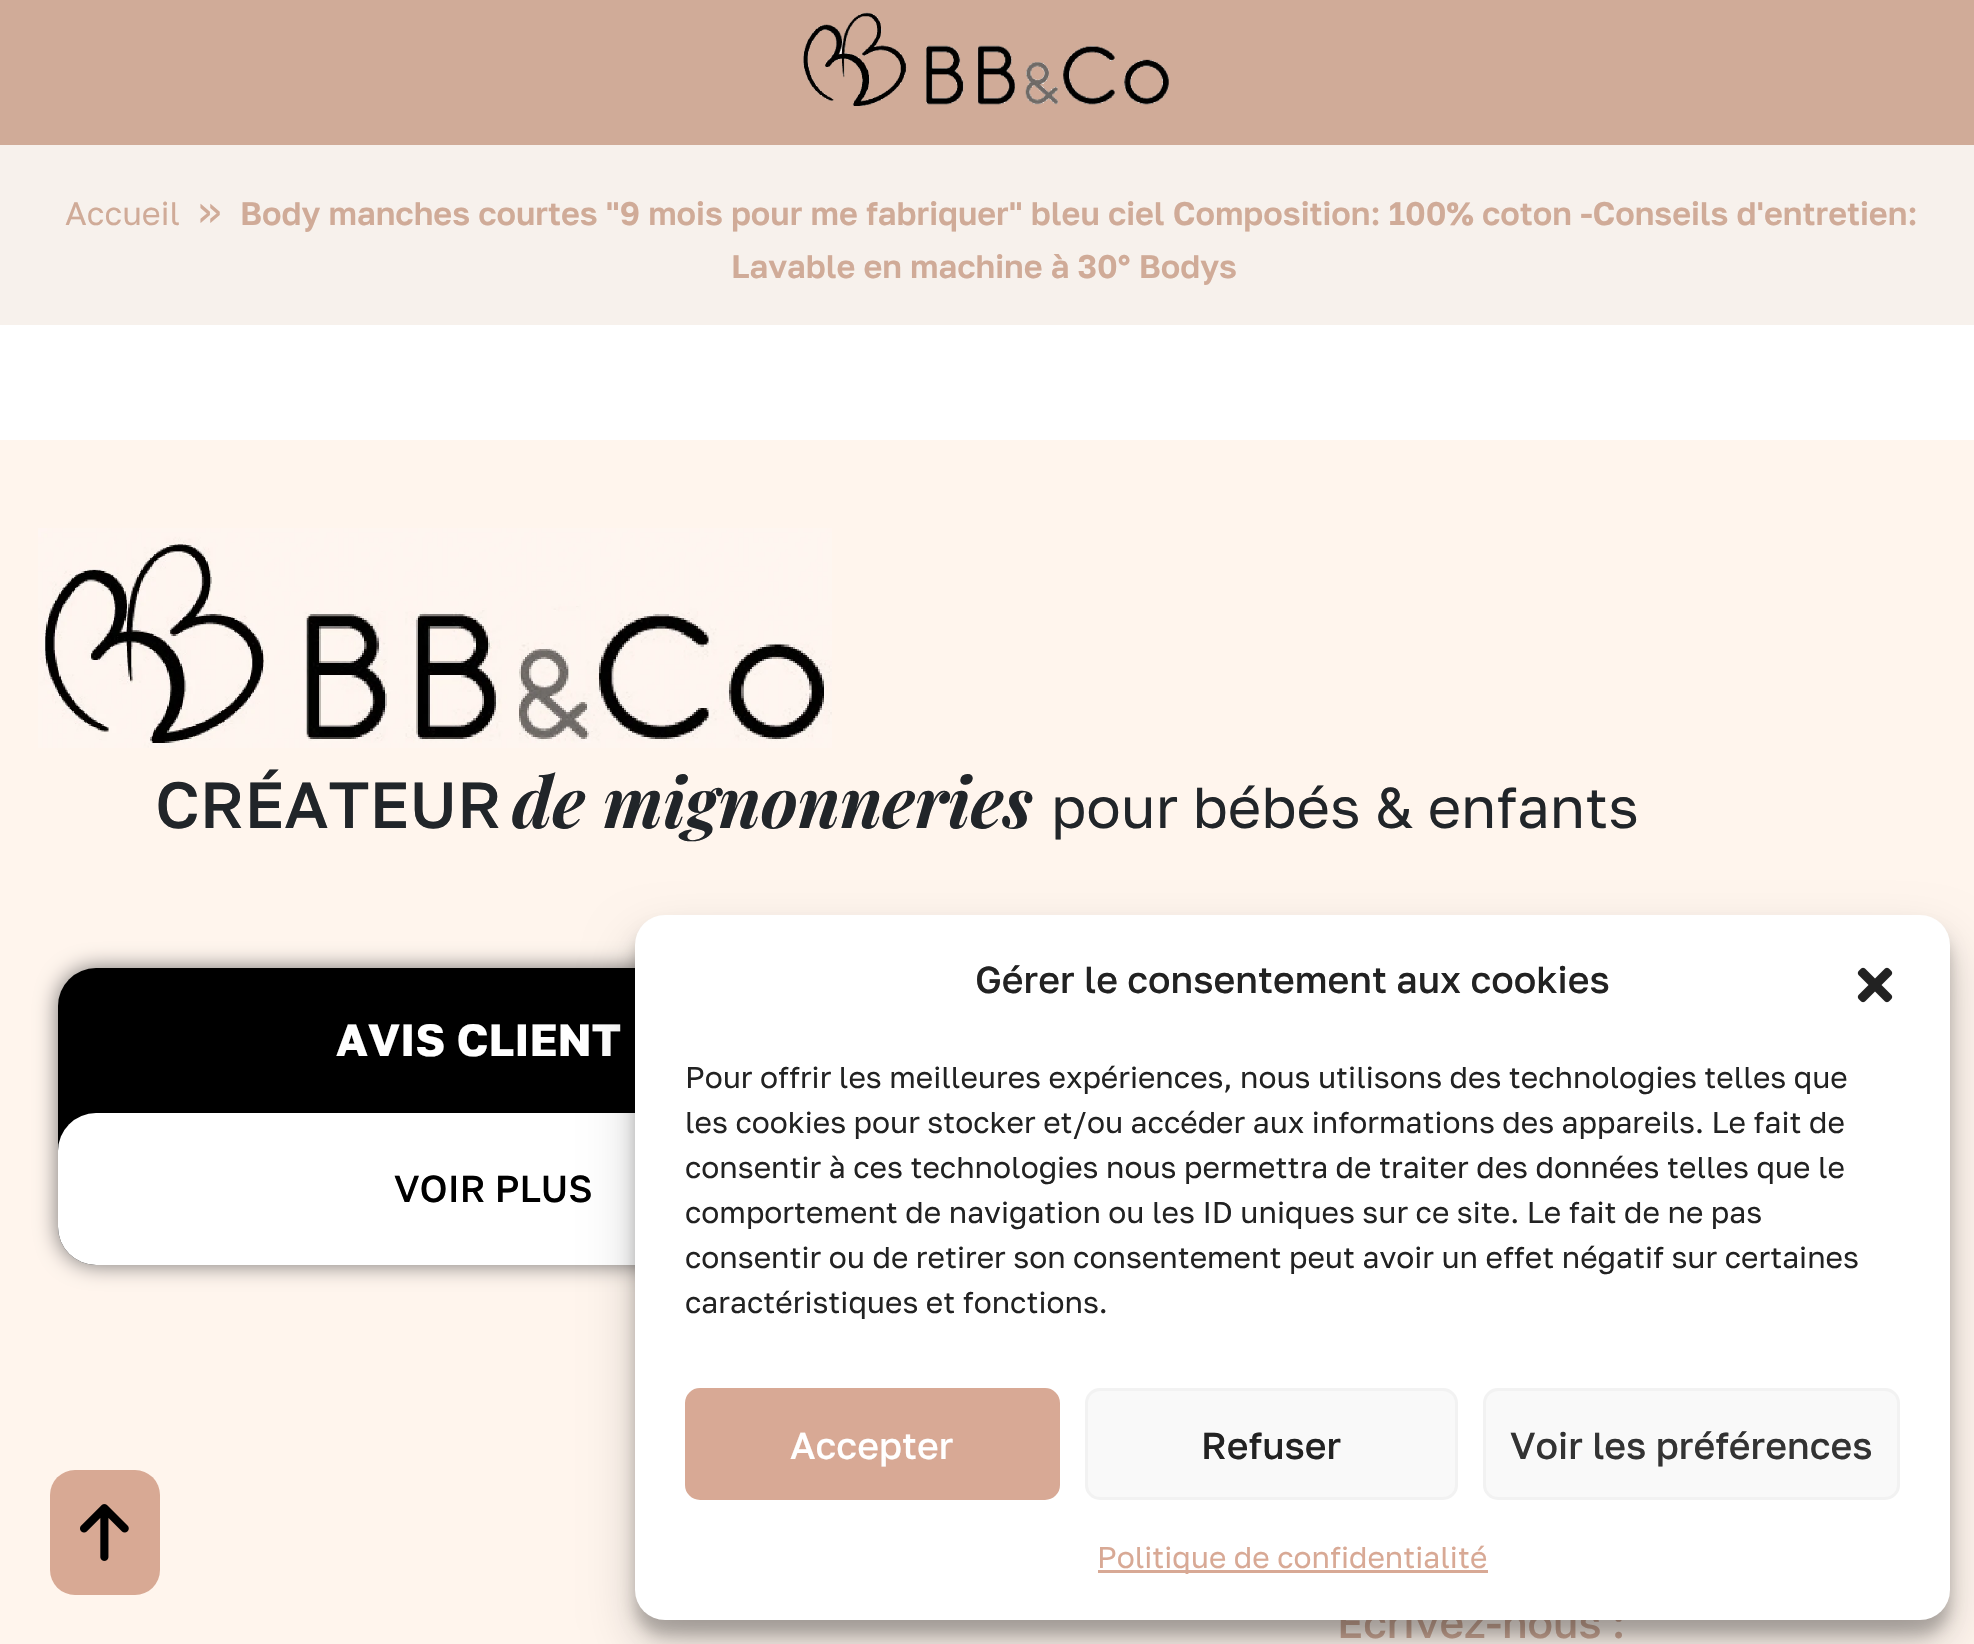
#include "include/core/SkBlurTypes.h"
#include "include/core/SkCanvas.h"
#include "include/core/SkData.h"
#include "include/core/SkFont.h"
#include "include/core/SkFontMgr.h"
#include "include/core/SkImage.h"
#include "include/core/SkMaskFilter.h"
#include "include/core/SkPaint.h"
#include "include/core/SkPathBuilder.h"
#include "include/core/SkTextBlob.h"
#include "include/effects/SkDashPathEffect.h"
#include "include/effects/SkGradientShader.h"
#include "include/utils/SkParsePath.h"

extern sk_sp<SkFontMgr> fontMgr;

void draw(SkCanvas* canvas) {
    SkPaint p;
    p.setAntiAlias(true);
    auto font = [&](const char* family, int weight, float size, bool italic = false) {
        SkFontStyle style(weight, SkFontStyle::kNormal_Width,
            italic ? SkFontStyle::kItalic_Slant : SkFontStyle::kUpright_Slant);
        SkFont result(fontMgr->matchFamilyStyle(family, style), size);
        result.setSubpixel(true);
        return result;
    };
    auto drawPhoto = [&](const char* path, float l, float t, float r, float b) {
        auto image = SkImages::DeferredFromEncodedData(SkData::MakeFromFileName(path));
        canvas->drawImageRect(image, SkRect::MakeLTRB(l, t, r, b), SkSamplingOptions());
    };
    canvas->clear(0xFFFFFFFF);
    p.setColor(0xFFD0AB98);
    canvas->drawRect(SkRect::MakeLTRB(0, 0, 1974, 145), p);
    drawPhoto("media/1.png", 803, 12, 1169, 106);
    p.setColor(0xFFF7F1EC);
    canvas->drawRect(SkRect::MakeLTRB(0, 145, 1974, 325), p);
    auto font1 = font("Golos Text", 400, 32.5f);
    p.setColor(0xFFD0AB98);
    canvas->drawString("Accueil", 65, 225, font1, p);
    auto font2 = font("Golos Text", 400, 42.5f);
    canvas->drawString("»", 198, 225, font2, p);
    auto font3 = font("Golos Text", 600, 32.5f);
    canvas->drawString("Body manches courtes \"9 mois pour me fabriquer\" bleu ciel Composition: 100% coton -Conseils d'entretien:", 240, 225, font3, p);
    canvas->drawString("Lavable en machine à 30° Bodys", 731, 278, font3, p);
    p.setColor(0xFFFFF5ED);
    canvas->drawRect(SkRect::MakeLTRB(0, 440, 1974, 1644), p);
    drawPhoto("media/2.png", 38, 528, 832, 748);
    auto font4 = font("Golos Text", 500, 65);
    p.setColor(0xFF212529);
    canvas->drawString("CRÉATEUR", 155, 828, font4, p);
    auto font5 = font("Playfair Display", 700, 70, true);
    canvas->drawString("de mignonneries", 512, 828, font5, p);
    auto font6 = font("Golos Text", 400, 57.5f);
    canvas->drawString("pour bébés & enfants", 1051, 828, font6, p);
    p.setColor(0xFF777474);
    p.setMaskFilter(SkMaskFilter::MakeBlur(kNormal_SkBlurStyle, 11));
    canvas->drawRoundRect(SkRect::MakeLTRB(58, 968, 933, 1265), 38, 38, p);
    p.setMaskFilter(nullptr);
    p.setColor(0xFF000000);
    canvas->drawRoundRect(SkRect::MakeLTRB(58, 968, 933, 1265), 38, 38, p);
    auto font7 = font("Golos Text", 700, 45);
    p.setColor(0xFFFFFFFF);
    canvas->drawString("AVIS CLIENT", 336, 1056, font7, p);
    canvas->drawRoundRect(SkRect::MakeLTRB(58, 1113, 933, 1265), 38, 38, p);
    auto font8 = font("Golos Text", 500, 37.5f);
    p.setColor(0xFF000000);
    canvas->drawString("VOIR PLUS", 394, 1202, font8, p);
    auto font9 = font("Golos Text", 500, 42.5f);
    p.setColor(0xFFD0AB98);
    canvas->drawString("Ecrivez-nous :", 1337, 1638, font9, p);
    p.setColor(0xFFD8A994);
    canvas->drawRoundRect(SkRect::MakeLTRB(50, 1470, 160, 1595), 25, 25, p);
    drawPhoto("media/3.png", 80, 1504, 129, 1561);
    p.setColor(0x3B000000);
    p.setMaskFilter(SkMaskFilter::MakeBlur(kNormal_SkBlurStyle, 7.5f));
    canvas->drawRoundRect(SkRect::MakeLTRB(635, 930, 1950, 1635), 30, 30, p);
    p.setMaskFilter(nullptr);
    p.setColor(0x30000000);
    p.setMaskFilter(SkMaskFilter::MakeBlur(kNormal_SkBlurStyle, 25));
    canvas->drawRoundRect(SkRect::MakeLTRB(635, 940, 1950, 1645), 30, 30, p);
    p.setMaskFilter(nullptr);
    p.setColor(0xFFFFFFFF);
    canvas->drawRoundRect(SkRect::MakeLTRB(635, 915, 1950, 1620), 30, 30, p);
    p.setColor(0xFF222222);
    canvas->drawString("Gérer le consentement aux cookies", 975, 993, font8, p);
    drawPhoto("media/4.png", 1857, 967, 1893, 1003);
    auto font10 = font("Golos Text", 400, 30);
    {
        const struct { const char* s; float x, y; } items[] = {
            {"Pour offrir les meilleures expériences, nous utilisons des technologies telles que", 685, 1088},
            {"les cookies pour stocker et/ou accéder aux informations des appareils. Le fait de", 685, 1133},
            {"consentir à ces technologies nous permettra de traiter des données telles que le", 685, 1178},
            {"comportement de navigation ou les ID uniques sur ce site. Le fait de ne pas", 685, 1223},
            {"consentir ou de retirer son consentement peut avoir un effet négatif sur certaines", 685, 1268},
            {"caractéristiques et fonctions.", 685, 1313},
        };
        for (auto [s, x, y] : items) {
            canvas->drawString(s, x, y, font10, p);
        }
    }
    p.setColor(0xFFD8A995);
    canvas->drawRoundRect(SkRect::MakeLTRB(686.5f, 1389.5f, 1058.5f, 1498.5f), 13.5f, 13.5f, p);
    p.setStyle(SkPaint::kStroke_Style);
    p.setStrokeWidth(3);
    canvas->drawRoundRect(SkRect::MakeLTRB(686.5f, 1389.5f, 1058.5f, 1498.5f), 13.5f, 13.5f, p);
    p.setStyle(SkPaint::kFill_Style);
    p.setColor(0xFFFFFFFF);
    canvas->drawString("Accepter", 790, 1459, font8, p);
    p.setColor(0xFFF9F9F9);
    canvas->drawRoundRect(SkRect::MakeLTRB(1086.5f, 1389.5f, 1456.5f, 1498.5f), 13.5f, 13.5f, p);
    p.setStyle(SkPaint::kStroke_Style);
    p.setColor(0xFFF2F2F2);
    canvas->drawRoundRect(SkRect::MakeLTRB(1086.5f, 1389.5f, 1456.5f, 1498.5f), 13.5f, 13.5f, p);
    p.setStyle(SkPaint::kFill_Style);
    p.setColor(0xFF222222);
    canvas->drawString("Refuser", 1201, 1459, font8, p);
    p.setColor(0xFFF9F9F9);
    canvas->drawRoundRect(SkRect::MakeLTRB(1484.5f, 1389.5f, 1898.5f, 1498.5f), 13.5f, 13.5f, p);
    p.setStyle(SkPaint::kStroke_Style);
    p.setColor(0xFFF2F2F2);
    canvas->drawRoundRect(SkRect::MakeLTRB(1484.5f, 1389.5f, 1898.5f, 1498.5f), 13.5f, 13.5f, p);
    p.setStyle(SkPaint::kFill_Style);
    p.setColor(0xFF333333);
    canvas->drawString("Voir les préférences", 1510, 1459, font8, p);
    p.setColor(0xFFD8A995);
    canvas->drawRect(SkRect::MakeLTRB(1098, 1570, 1488, 1573), p);
    canvas->drawString("Politique de confidentialité", 1097, 1568, font10, p);
}
